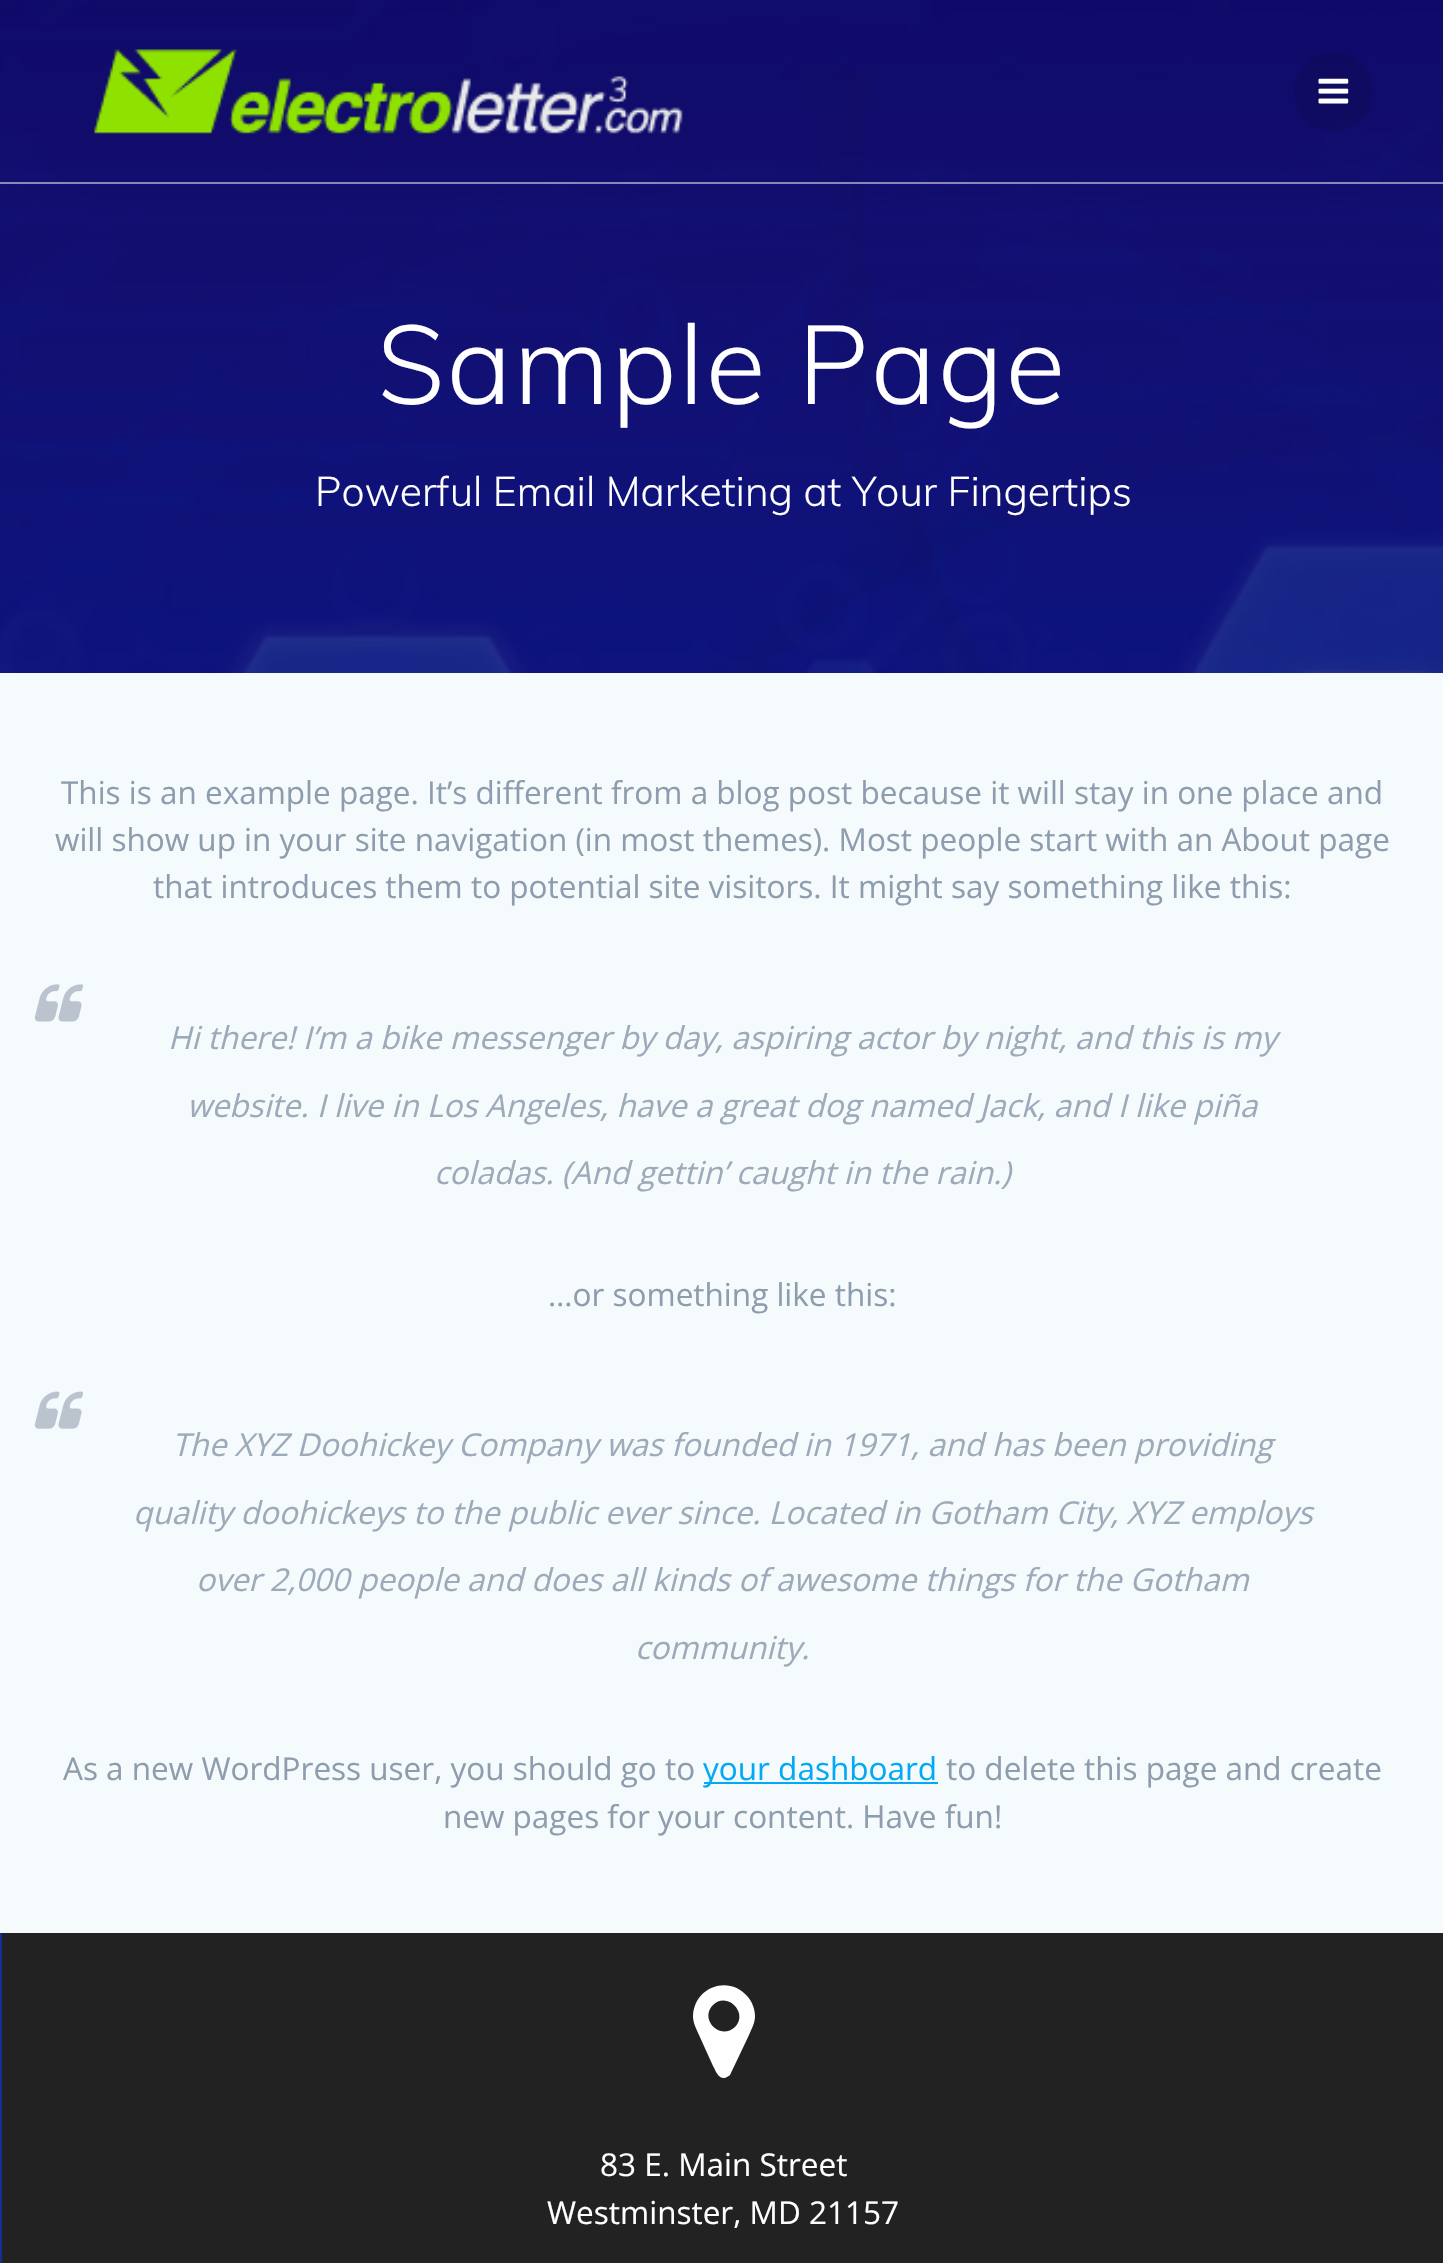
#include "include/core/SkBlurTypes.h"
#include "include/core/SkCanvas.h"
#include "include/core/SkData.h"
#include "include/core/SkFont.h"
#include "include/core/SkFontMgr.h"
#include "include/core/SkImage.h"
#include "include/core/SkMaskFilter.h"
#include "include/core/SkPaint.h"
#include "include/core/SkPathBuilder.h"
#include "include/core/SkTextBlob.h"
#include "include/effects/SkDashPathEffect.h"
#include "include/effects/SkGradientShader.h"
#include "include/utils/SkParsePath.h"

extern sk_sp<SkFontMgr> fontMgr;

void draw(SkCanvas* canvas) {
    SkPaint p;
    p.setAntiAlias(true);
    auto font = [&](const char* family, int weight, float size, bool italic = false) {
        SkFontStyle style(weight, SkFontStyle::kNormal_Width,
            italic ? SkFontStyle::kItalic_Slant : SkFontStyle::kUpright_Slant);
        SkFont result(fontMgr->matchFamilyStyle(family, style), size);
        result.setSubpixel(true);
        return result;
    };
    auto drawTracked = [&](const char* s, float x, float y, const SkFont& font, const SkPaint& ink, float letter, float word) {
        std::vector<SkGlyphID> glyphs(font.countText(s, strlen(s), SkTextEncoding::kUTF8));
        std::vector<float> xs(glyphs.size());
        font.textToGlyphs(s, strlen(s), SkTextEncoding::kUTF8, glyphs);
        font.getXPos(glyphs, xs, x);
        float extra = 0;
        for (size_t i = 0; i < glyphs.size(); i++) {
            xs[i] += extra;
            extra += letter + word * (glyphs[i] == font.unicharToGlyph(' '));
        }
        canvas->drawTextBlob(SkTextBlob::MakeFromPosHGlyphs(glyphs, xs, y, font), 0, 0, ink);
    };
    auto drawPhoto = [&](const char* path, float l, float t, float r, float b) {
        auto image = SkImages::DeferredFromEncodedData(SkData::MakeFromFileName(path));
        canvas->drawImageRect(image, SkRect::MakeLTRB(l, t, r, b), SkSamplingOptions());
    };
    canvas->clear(0xFFFFFFFF);
    drawPhoto("media/3.png", 0, 0, 1443, 673);
    drawPhoto("media/4.png", 733, 70, 1443, 673);
    p.setColor(0x80FFFFFF);
    canvas->drawRect(SkRect::MakeLTRB(0, 182, 1443, 184), p);
    drawPhoto("media/1.png", 94, 49, 683, 134);
    p.setColor(0x1A000000);
    canvas->drawCircle(1333.5f, 91.5f, 39.5f, p);
    drawPhoto("media/2.png", 1318, 78, 1349, 104);
    auto font1 = font("Muli", 300, 110.25f);
    p.setColor(0xFFFFFFFF);
    drawTracked("Sample Page", 377, 404, font1, p, 2, 0);
    auto font2 = font("Muli", 300, 41);
    canvas->drawString("Powerful Email Marketing at Your Fingertips", 315, 506, font2, p);
    p.setColor(0xFFF5FAFD);
    canvas->drawRect(SkRect::MakeLTRB(0, 673, 1443, 1933), p);
    auto font3 = font("Open Sans", 400, 31.5f);
    p.setColor(0xFF8E9DAE);
    {
        const struct { const char* s; float x, y; } items[] = {
            {"This is an example page. It’s different from a blog post because it will stay in one place and", 61, 804},
            {"will show up in your site navigation (in most themes). Most people start with an About page", 55, 851},
            {"that introduces them to potential site visitors. It might say something like this:", 153, 898},
        };
        for (auto [s, x, y] : items) {
            canvas->drawString(s, x, y, font3, p);
        }
    }
    drawPhoto("media/5.png", 34, 984, 84, 1022);
    auto font4 = font("Open Sans", 400, 31.5f, true);
    p.setColor(0xFF9DAAB9);
    {
        const struct { const char* s; float x, y; } items[] = {
            {"Hi there! I’m a bike messenger by day, aspiring actor by night, and this is my", 168, 1049},
            {"website. I live in Los Angeles, have a great dog named Jack, and I like piña", 187, 1117},
            {"coladas. (And gettin’ caught in the rain.)", 434, 1184},
        };
        for (auto [s, x, y] : items) {
            canvas->drawString(s, x, y, font4, p);
        }
    }
    p.setColor(0xFF8E9DAE);
    canvas->drawString("…or something like this:", 548, 1306, font3, p);
    drawPhoto("media/6.png", 34, 1391, 83, 1429);
    p.setColor(0xFF9DAAB9);
    {
        const struct { const char* s; float x, y; } items[] = {
            {"The XYZ Doohickey Company was founded in 1971, and has been providing", 172, 1456},
            {"quality doohickeys to the public ever since. Located in Gotham City, XYZ employs", 133, 1524},
            {"over 2,000 people and does all kinds of awesome things for the Gotham", 196, 1591},
            {"community.", 635, 1659},
        };
        for (auto [s, x, y] : items) {
            canvas->drawString(s, x, y, font4, p);
        }
    }
    p.setColor(0xFF8E9DAE);
    canvas->drawString("As a new WordPress user, you should go to", 63, 1780, font3, p);
    p.setColor(0xFF03A9F4);
    canvas->drawRect(SkRect::MakeLTRB(704, 1782, 938, 1784), p);
    canvas->drawString("your dashboard", 703, 1780, font3, p);
    p.setColor(0xFF8E9DAE);
    canvas->drawString("to delete this page and create", 946, 1780, font3, p);
    canvas->drawString("new pages for your content. Have fun!", 443, 1828, font3, p);
    p.setColor(0xFF222222);
    canvas->drawRect(SkRect::MakeLTRB(2, 1933, 1443, 2263), p);
    p.setColor(0xFF132F94);
    canvas->drawRect(SkRect::MakeLTRB(0, 1933, 2, 2263), p);
    p.setColor(0xFFFFFFFF);
    canvas->drawPath(SkPathBuilder().moveTo(735, 2027).cubicTo(749, 2013, 727, 1991, 713, 2005).cubicTo(699, 2019, 720, 2041, 735, 2027).close().moveTo(755, 2016).cubicTo(755, 2023, 752, 2028, 749, 2035).lineTo(730, 2075).cubicTo(729, 2076, 727, 2077, 725, 2078).cubicTo(718, 2079, 716, 2071, 713, 2066).lineTo(699, 2035).cubicTo(696, 2028, 693, 2023, 693, 2016).cubicTo(694, 1987, 729, 1974, 748, 1997).cubicTo(752, 2002, 755, 2009, 755, 2016).close().detach(), p);
    canvas->drawString("83 E. Main Street", 600, 2176, font3, p);
    canvas->drawString("Westminster, MD 21157", 547, 2224, font3, p);
}
